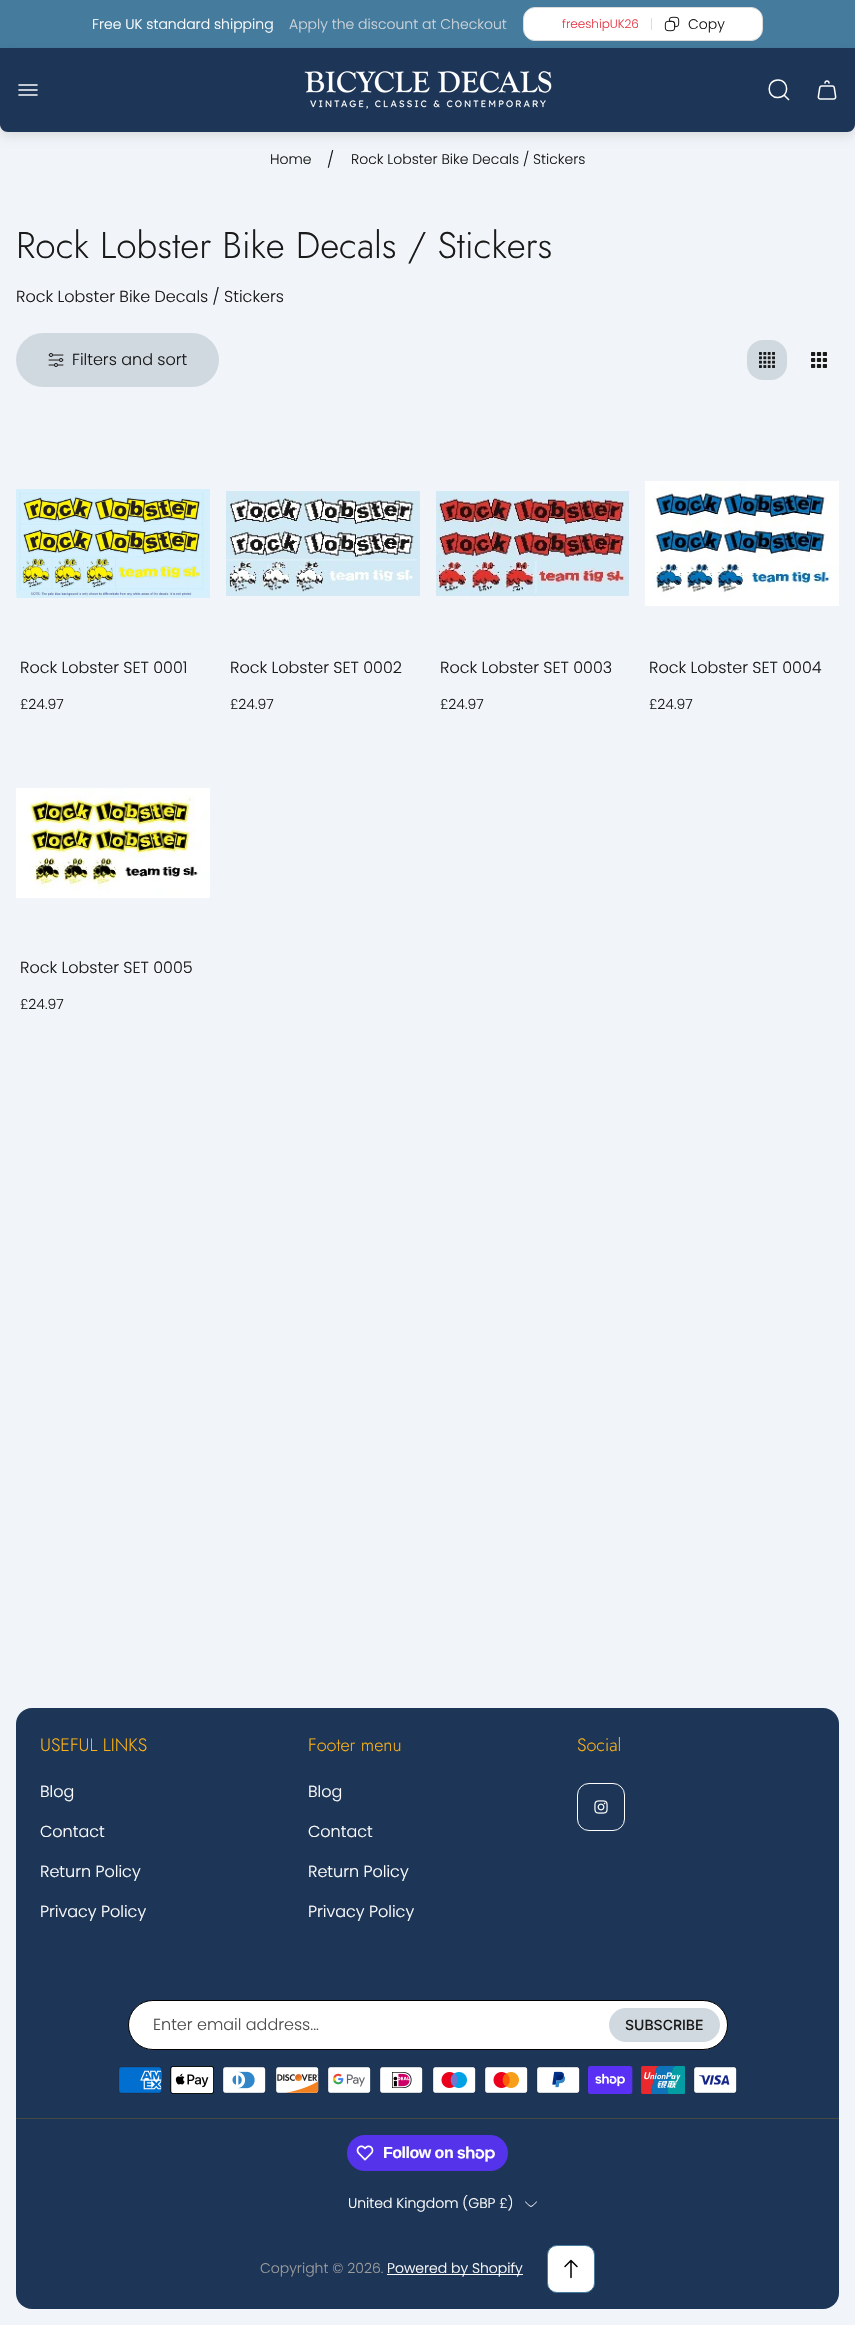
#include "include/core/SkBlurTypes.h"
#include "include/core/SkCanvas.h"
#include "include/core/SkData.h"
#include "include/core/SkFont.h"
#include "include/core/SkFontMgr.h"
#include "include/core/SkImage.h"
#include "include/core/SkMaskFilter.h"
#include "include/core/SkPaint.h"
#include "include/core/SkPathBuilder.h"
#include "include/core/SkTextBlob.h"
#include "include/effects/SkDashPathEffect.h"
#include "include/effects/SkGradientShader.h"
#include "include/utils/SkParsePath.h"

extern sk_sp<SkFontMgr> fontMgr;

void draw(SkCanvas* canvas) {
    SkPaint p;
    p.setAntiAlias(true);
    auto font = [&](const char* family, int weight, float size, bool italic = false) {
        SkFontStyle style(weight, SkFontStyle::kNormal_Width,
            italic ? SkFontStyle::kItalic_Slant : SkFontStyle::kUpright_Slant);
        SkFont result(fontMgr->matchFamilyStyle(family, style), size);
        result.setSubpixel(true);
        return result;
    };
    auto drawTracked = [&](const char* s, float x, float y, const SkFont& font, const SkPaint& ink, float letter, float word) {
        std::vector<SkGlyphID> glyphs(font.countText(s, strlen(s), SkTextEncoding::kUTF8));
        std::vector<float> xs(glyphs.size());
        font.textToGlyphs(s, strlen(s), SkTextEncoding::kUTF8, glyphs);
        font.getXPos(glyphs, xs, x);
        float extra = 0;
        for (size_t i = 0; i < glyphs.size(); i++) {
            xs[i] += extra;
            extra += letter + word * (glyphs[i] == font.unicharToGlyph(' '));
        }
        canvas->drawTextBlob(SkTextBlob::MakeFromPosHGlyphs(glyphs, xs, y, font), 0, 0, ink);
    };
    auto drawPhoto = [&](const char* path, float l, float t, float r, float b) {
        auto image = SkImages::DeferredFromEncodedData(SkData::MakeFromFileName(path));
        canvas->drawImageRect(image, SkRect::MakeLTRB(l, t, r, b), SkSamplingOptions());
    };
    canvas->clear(0xFFF1F4F8);
    p.setColor(0xFF457B9D);
    canvas->drawRect(SkRect::MakeLTRB(0, 0, 855, 48), p);
    auto font1 = font("Poppins", 300, 14);
    p.setColor(0xFFFFFFFF);
    canvas->drawString("Free UK standard shipping", 92, 29, font1, p);
    p.setColor(0xFFCED4DA);
    canvas->drawString("Apply the discount at Checkout", 289, 29, font1, p);
    p.setColor(0x1A000000);
    p.setMaskFilter(SkMaskFilter::MakeBlur(kNormal_SkBlurStyle, 5.5f));
    canvas->drawRoundRect(SkRect::MakeLTRB(0, 52, 855, 136), 8, 8, p);
    p.setMaskFilter(nullptr);
    p.setColor(0xFFFFFFFF);
    canvas->drawRoundRect(SkRect::MakeLTRB(523.5f, 7.5f, 762.5f, 40.5f), 11.5f, 11.5f, p);
    p.setStyle(SkPaint::kStroke_Style);
    p.setStrokeWidth(1);
    p.setColor(0xFFDCDCDC);
    canvas->drawRoundRect(SkRect::MakeLTRB(523.5f, 7.5f, 762.5f, 40.5f), 11.5f, 11.5f, p);
    auto font2 = font("Poppins", 300, 12);
    p.setStyle(SkPaint::kFill_Style);
    p.setColor(0xFFE63946);
    canvas->drawString("freeshipUK26", 562, 28, font2, p);
    p.setColor(0xFFDCDCDC);
    canvas->drawRect(SkRect::MakeLTRB(651, 18, 652, 30), p);
    drawPhoto("media/1.png", 664, 16, 680, 32);
    p.setColor(0xFF1A1A1A);
    canvas->drawString("Copy", 688, 29, font1, p);
    p.setColor(0xFF1D3557);
    canvas->drawPath(SkPathBuilder().moveTo(0, 48).lineTo(855, 48).lineTo(855, 124).cubicTo(855, 128.5f, 851.5f, 132, 847, 132).lineTo(8, 132).cubicTo(3.5f, 132, 0, 128.5f, 0, 124).close().detach(), p);
    drawPhoto("media/2.png", 18, 84, 38, 96);
    drawPhoto("media/3.png", 304, 71, 552, 109);
    p.setStyle(SkPaint::kStroke_Style);
    p.setStrokeWidth(1.5f);
    p.setColor(0xFFFFFFFF);
    canvas->drawPath(SkPathBuilder().moveTo(784, 95).lineTo(789, 100).moveTo(778, 80).cubicTo(789.5f, 80, 789.5f, 97.5f, 778, 97.5f).cubicTo(766.5f, 98, 766, 80, 778, 80).close().detach(), p);
    drawPhoto("media/4.png", 817, 80, 837, 100);
    p.setStyle(SkPaint::kFill_Style);
    p.setColor(0xFF1A1A1A);
    canvas->drawString("Home", 270, 164, font1, p);
    auto font3 = font("Poppins", 300, 16);
    canvas->drawString("/", 327, 165, font3, p);
    canvas->drawString("Rock Lobster Bike Decals / Stickers", 351, 164, font1, p);
    auto font4 = font("Jost", 300, 37);
    canvas->drawString("Rock Lobster Bike Decals / Stickers", 16, 258, font4, p);
    canvas->drawString("Rock Lobster Bike Decals / Stickers", 16, 302, font3, p);
    p.setColor(0xFFD1D9E0);
    canvas->drawRoundRect(SkRect::MakeLTRB(16, 333, 219, 387), 27, 27, p);
    drawPhoto("media/5.png", 48, 353, 64, 367);
    p.setColor(0xFF1A1A1A);
    canvas->drawString("Filters and sort", 72, 365, font3, p);
    p.setColor(0xFFD1D9E0);
    canvas->drawRoundRect(SkRect::MakeLTRB(747, 340, 787, 380), 16, 16, p);
    drawPhoto("media/6.png", 759, 352, 775, 368);
    drawPhoto("media/7.png", 811, 352, 827, 368);
    drawPhoto("media/8.png", 16, 489, 210, 598);
    p.setColor(0xFF1A1A1A);
    canvas->drawString("Rock Lobster SET 0001", 20, 673, font3, p);
    canvas->drawString("£24.97", 20, 709, font1, p);
    drawPhoto("media/9.png", 226, 491, 420, 596);
    canvas->drawString("Rock Lobster SET 0002", 230, 673, font3, p);
    canvas->drawString("£24.97", 230, 709, font1, p);
    drawPhoto("media/10.png", 436, 491, 629, 596);
    canvas->drawString("Rock Lobster SET 0003", 440, 673, font3, p);
    canvas->drawString("£24.97", 440, 709, font1, p);
    drawPhoto("media/11.png", 645, 481, 839, 606);
    canvas->drawString("Rock Lobster SET 0004", 649, 673, font3, p);
    canvas->drawString("£24.97", 649, 709, font1, p);
    drawPhoto("media/12.png", 16, 788, 210, 898);
    canvas->drawString("Rock Lobster SET 0005", 20, 973, font3, p);
    canvas->drawString("£24.97", 20, 1009, font1, p);
    p.setColor(0xFF1D3557);
    canvas->drawRoundRect(SkRect::MakeLTRB(16, 1708, 839, 2309), 16, 16, p);
    auto font5 = font("Jost", 300, 18);
    p.setColor(0xFFFAB217);
    canvas->drawString("USEFUL LINKS", 40, 1751, font5, p);
    p.setColor(0xFFFFFFFF);
    {
        const struct { const char* s; float x, y; } items[] = {
            {"Blog", 40, 1797},
            {"Contact", 40, 1837},
            {"Return Policy", 40, 1877},
            {"Privacy Policy", 40, 1917},
        };
        for (auto [s, x, y] : items) {
            canvas->drawString(s, x, y, font3, p);
        }
    }
    p.setColor(0xFFFAB217);
    canvas->drawString("Footer menu", 308, 1751, font5, p);
    p.setColor(0xFFFFFFFF);
    {
        const struct { const char* s; float x, y; } items[] = {
            {"Blog", 308, 1797},
            {"Contact", 308, 1837},
            {"Return Policy", 308, 1877},
            {"Privacy Policy", 308, 1917},
        };
        for (auto [s, x, y] : items) {
            canvas->drawString(s, x, y, font3, p);
        }
    }
    p.setColor(0xFFFAB217);
    canvas->drawString("Social", 577, 1751, font5, p);
    p.setStyle(SkPaint::kStroke_Style);
    p.setStrokeWidth(1);
    p.setColor(0xFFFFFFFF);
    canvas->drawRoundRect(SkRect::MakeLTRB(577.5f, 1783.5f, 624.5f, 1830.5f), 11.5f, 11.5f, p);
    drawPhoto("media/13.png", 594, 1800, 608, 1814);
    p.setStyle(SkPaint::kFill_Style);
    canvas->drawRoundRect(SkRect::MakeLTRB(128.5f, 2000.5f, 727.5f, 2049.5f), 24.5f, 24.5f, p);
    p.setStyle(SkPaint::kStroke_Style);
    p.setColor(0xFF000000);
    canvas->drawRoundRect(SkRect::MakeLTRB(128.5f, 2000.5f, 727.5f, 2049.5f), 24.5f, 24.5f, p);
    p.setStyle(SkPaint::kFill_Style);
    p.setColor(0xFF4D4D4D);
    canvas->drawString("Enter email address...", 153, 2030, font3, p);
    p.setColor(0xFFD1D9E0);
    canvas->drawRoundRect(SkRect::MakeLTRB(609, 2008, 720, 2042), 17, 17, p);
    auto font6 = font("Inter", 500, 14);
    p.setColor(0xFF1A1A1A);
    canvas->drawString("SUBSCRIBE", 625, 2030, font6, p);
    drawPhoto("media/14.png", 118, 2066, 162, 2094);
    drawPhoto("media/15.png", 170, 2066, 214, 2094);
    drawPhoto("media/16.png", 222, 2066, 266, 2094);
    drawPhoto("media/17.png", 275, 2066, 319, 2094);
    drawPhoto("media/18.png", 327, 2066, 371, 2094);
    drawPhoto("media/19.png", 379, 2066, 423, 2094);
    drawPhoto("media/20.png", 432, 2066, 476, 2094);
    drawPhoto("media/21.png", 484, 2066, 528, 2094);
    drawPhoto("media/22.png", 536, 2066, 580, 2094);
    drawPhoto("media/23.png", 588, 2066, 633, 2094);
    drawPhoto("media/24.png", 641, 2066, 685, 2094);
    drawPhoto("media/25.png", 693, 2066, 737, 2094);
    p.setColor(0xFF454B42);
    canvas->drawRect(SkRect::MakeLTRB(16, 2118, 839, 2119), p);
    p.setColor(0xFF5433EB);
    canvas->drawRoundRect(SkRect::MakeLTRB(347, 2135, 508, 2171), 18, 18, p);
    drawPhoto("media/26.png", 356, 2145, 374, 2161);
    auto font7 = font("Liberation Sans", 700, 16);
    p.setColor(0xFFFFFFFF);
    drawTracked("Follow on", 383, 2158, font7, p, -0.5f, 0);
    drawPhoto("media/27.png", 457, 2146, 495, 2162);
    canvas->drawString("United Kingdom (GBP £)", 348, 2208, font1, p);
    p.setStyle(SkPaint::kStroke_Style);
    p.setStrokeCap(SkPaint::kRound_Cap);
    p.setStrokeJoin(SkPaint::kRound_Join);
    canvas->drawPath(SkPathBuilder().moveTo(536.5f, 2202).cubicTo(530, 2208, 532, 2208, 525.5f, 2202).detach(), p);
    p.setStyle(SkPaint::kFill_Style);
    p.setColor(0xFF9D9D9D);
    canvas->drawString("Copyright © 2026.", 260, 2273, font1, p);
    p.setColor(0xFFFFFFFF);
    canvas->drawRect(SkRect::MakeLTRB(387, 2274, 523, 2275), p);
    canvas->drawString("Powered by Shopify", 387, 2273, font1, p);
    canvas->drawRoundRect(SkRect::MakeLTRB(547.5f, 2245.5f, 594.5f, 2292.5f), 9.5f, 9.5f, p);
    p.setStyle(SkPaint::kStroke_Style);
    p.setStrokeCap(SkPaint::kButt_Cap);
    p.setStrokeJoin(SkPaint::kMiter_Join);
    p.setColor(0xFF457B9D);
    canvas->drawRoundRect(SkRect::MakeLTRB(547.5f, 2245.5f, 594.5f, 2292.5f), 9.5f, 9.5f, p);
    p.setStrokeWidth(1.5f);
    p.setStrokeCap(SkPaint::kRound_Cap);
    p.setStrokeJoin(SkPaint::kRound_Join);
    p.setColor(0xFF000000);
    canvas->drawPath(SkPathBuilder().moveTo(577, 2266.5f).lineTo(571, 2260.5f).lineTo(565, 2266.5f).moveTo(571, 2277.5f).lineTo(571, 2260.5f).detach(), p);
}
